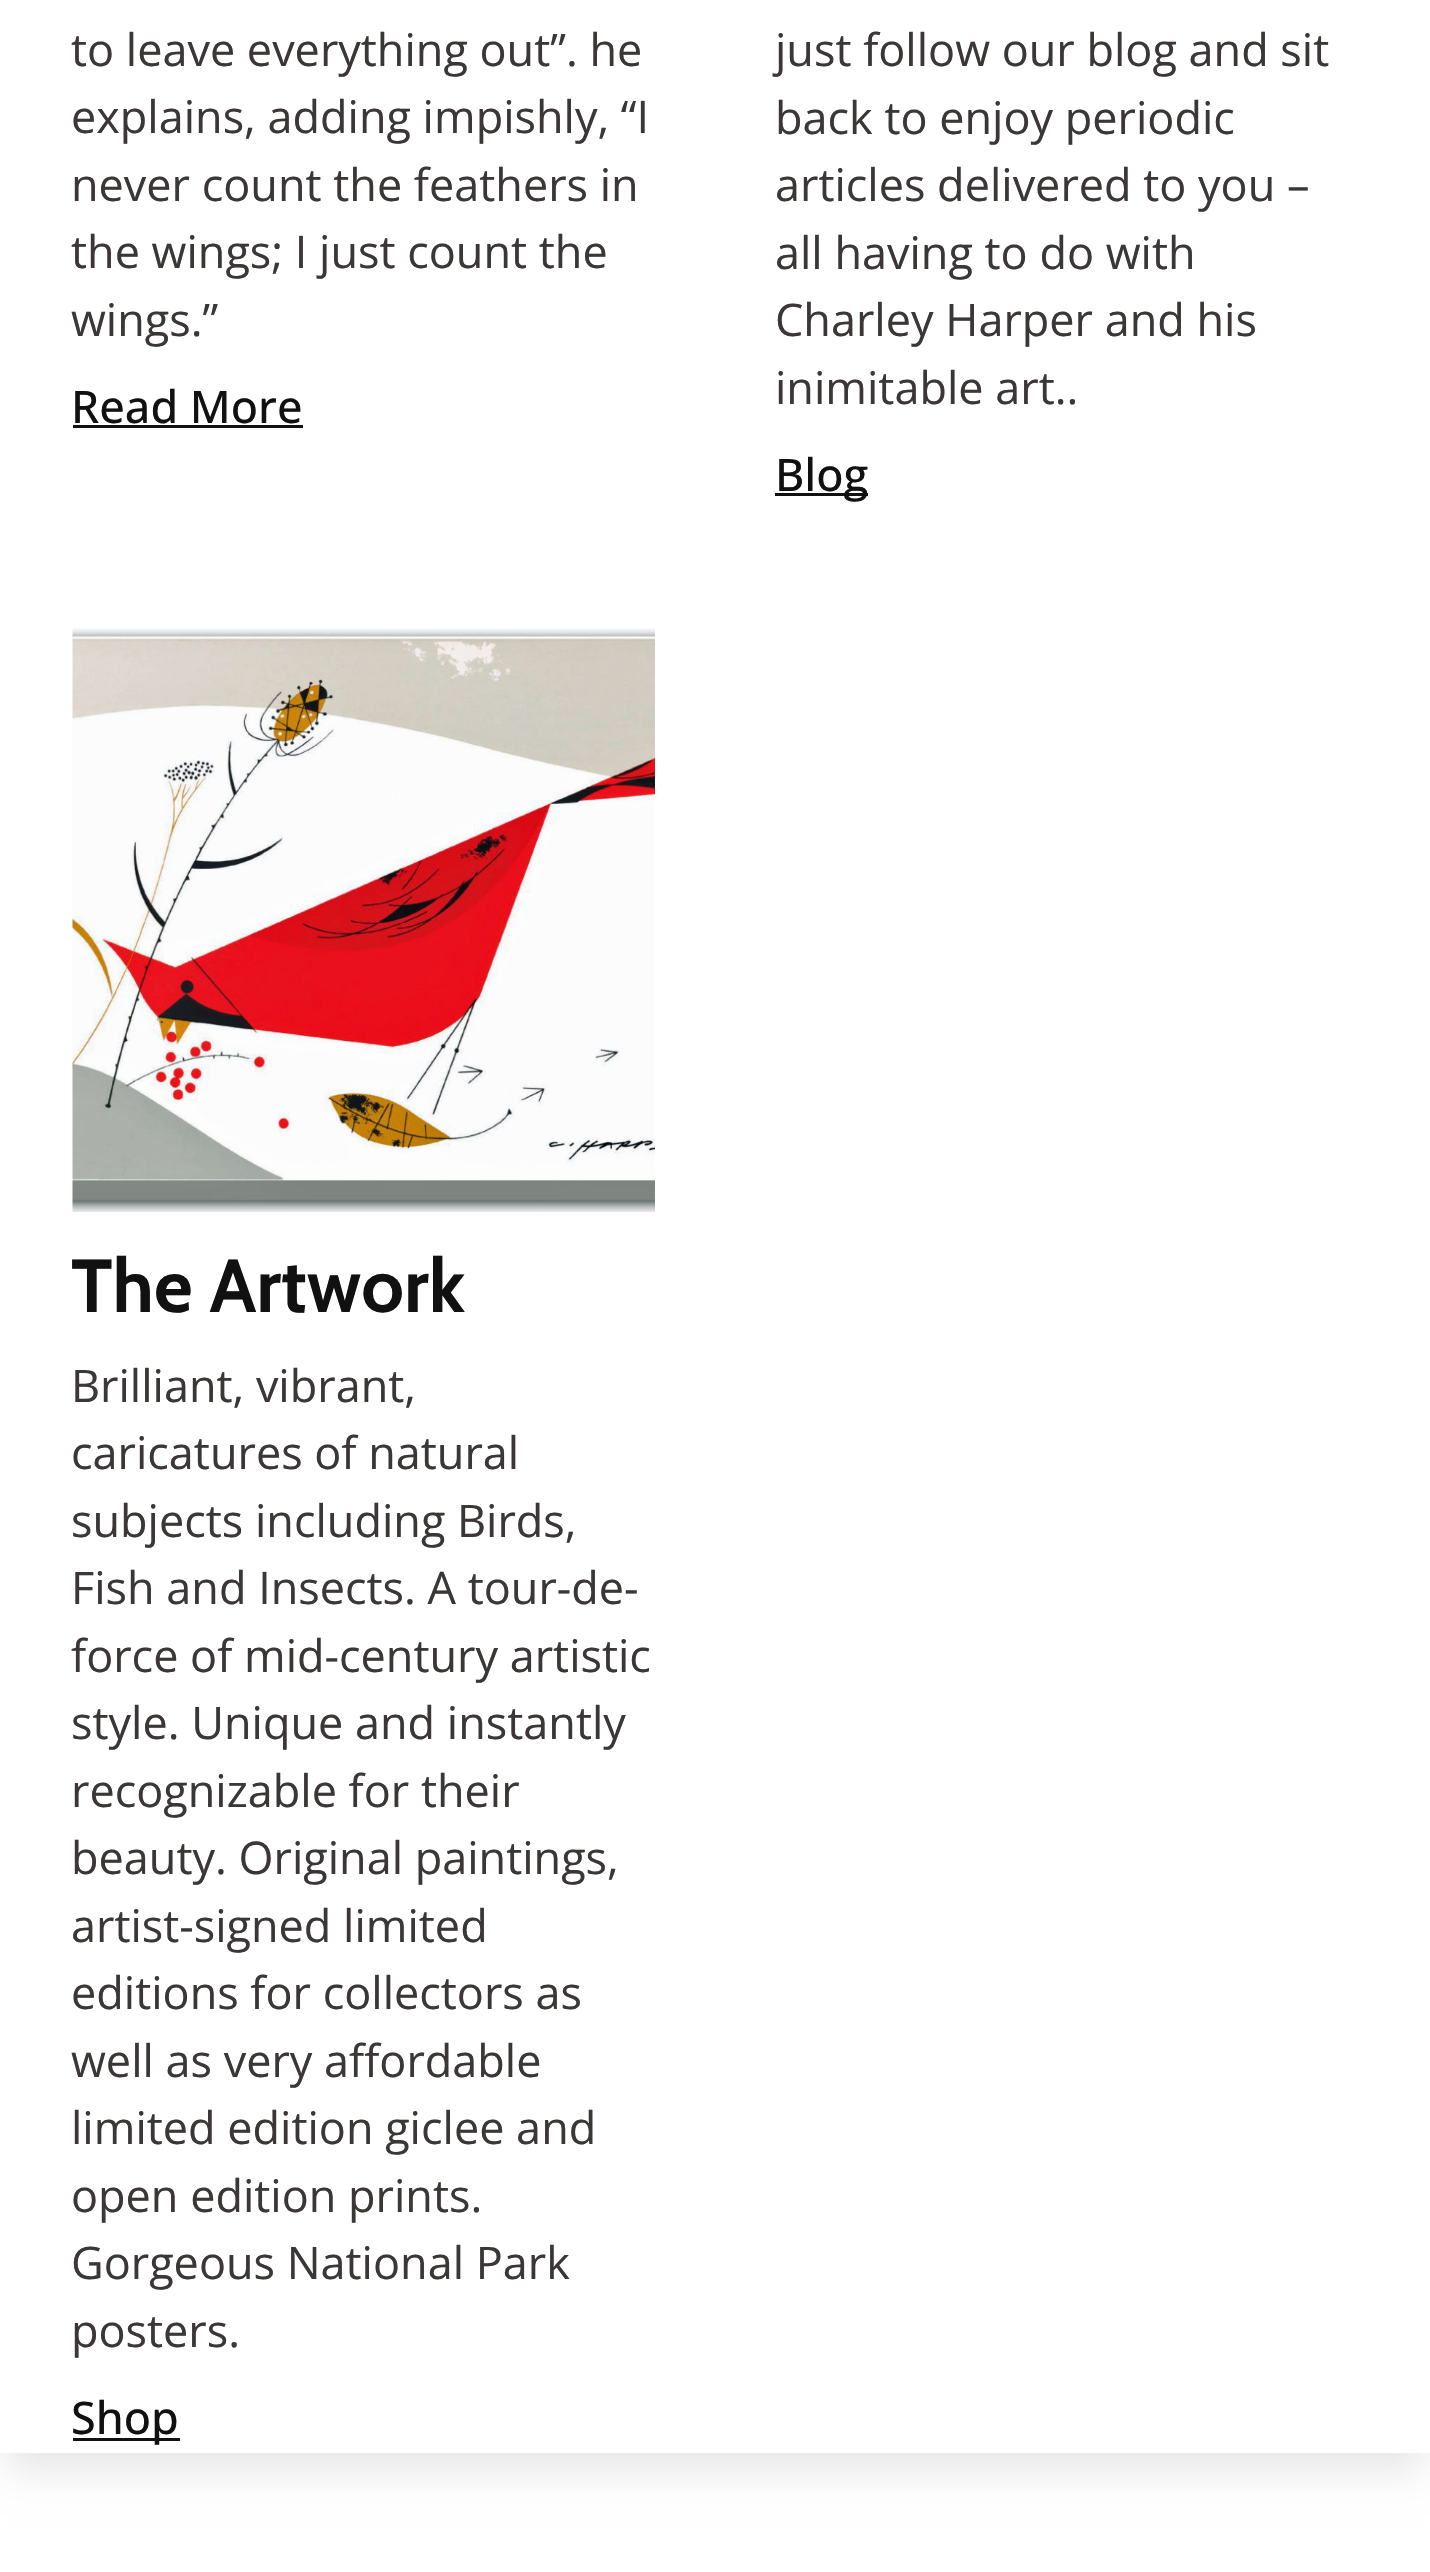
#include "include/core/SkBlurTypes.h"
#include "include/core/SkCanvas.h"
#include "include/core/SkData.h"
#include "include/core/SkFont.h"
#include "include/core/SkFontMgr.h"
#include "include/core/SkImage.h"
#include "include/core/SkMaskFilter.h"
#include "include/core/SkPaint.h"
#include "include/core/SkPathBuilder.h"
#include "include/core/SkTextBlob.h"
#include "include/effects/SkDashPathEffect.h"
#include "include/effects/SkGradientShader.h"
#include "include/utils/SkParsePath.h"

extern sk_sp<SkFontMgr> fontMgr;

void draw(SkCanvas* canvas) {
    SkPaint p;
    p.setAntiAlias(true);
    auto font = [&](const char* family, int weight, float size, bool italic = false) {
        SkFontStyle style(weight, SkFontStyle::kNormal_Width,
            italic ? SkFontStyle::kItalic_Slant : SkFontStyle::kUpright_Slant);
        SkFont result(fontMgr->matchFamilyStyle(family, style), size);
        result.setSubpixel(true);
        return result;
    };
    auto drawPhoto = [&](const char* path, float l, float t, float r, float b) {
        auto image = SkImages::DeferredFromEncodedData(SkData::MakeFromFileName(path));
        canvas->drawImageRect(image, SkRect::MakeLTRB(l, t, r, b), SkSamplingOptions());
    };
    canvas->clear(0xFFFFFFFF);
    canvas->save();
    canvas->clipPath(SkPathBuilder(SkPathFillType::kEvenOdd).moveTo(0, 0).lineTo(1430, 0).lineTo(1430, 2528).lineTo(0, 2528).close().moveTo(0, -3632).lineTo(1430, -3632).lineTo(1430, 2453).lineTo(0, 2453).close().detach(), true);
    p.setColor(0x1A000000);
    p.setMaskFilter(SkMaskFilter::MakeBlur(kNormal_SkBlurStyle, 19));
    canvas->drawRect(SkRect::MakeLTRB(8, -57, 1423, 2470), p);
    p.setMaskFilter(nullptr);
    canvas->restore();
    auto font1 = font("Open Sans", 400, 45);
    p.setColor(0xFF3B3736);
    {
        const struct { const char* s; float x, y; } items[] = {
            {"to leave everything out”. he", 71, 66},
            {"explains, adding impishly, “I", 71, 133},
            {"never count the feathers in", 71, 201},
            {"the wings; I just count the", 71, 268},
            {"wings.”", 71, 336},
        };
        for (auto [s, x, y] : items) {
            canvas->drawString(s, x, y, font1, p);
        }
    }
    auto font2 = font("Open Sans", 500, 45);
    p.setColor(0xFF111111);
    canvas->drawString("Read More", 71, 423, font2, p);
    canvas->drawRect(SkRect::MakeLTRB(73, 425, 303, 428), p);
    p.setColor(0xFF3B3736);
    {
        const struct { const char* s; float x, y; } items[] = {
            {"just follow our blog and sit", 775, 66},
            {"back to enjoy periodic", 775, 134},
            {"articles delivered to you –", 775, 201},
            {"all having to do with", 775, 269},
            {"Charley Harper and his", 775, 336},
            {"inimitable art..", 775, 404},
        };
        for (auto [s, x, y] : items) {
            canvas->drawString(s, x, y, font1, p);
        }
    }
    p.setColor(0xFF111111);
    canvas->drawRect(SkRect::MakeLTRB(775, 493, 868, 496), p);
    canvas->drawString("Blog", 775, 491, font2, p);
    drawPhoto("media/1.png", 72, 628, 655, 1212);
    auto font3 = font("Cabin", 700, 75);
    canvas->drawString("The Artwork", 71, 1312, font3, p);
    p.setColor(0xFF3B3736);
    {
        const struct { const char* s; float x, y; } items[] = {
            {"Brilliant, vibrant,", 71, 1402},
            {"caricatures of natural", 71, 1469},
            {"subjects including Birds,", 71, 1537},
            {"Fish and Insects. A tour-de-", 71, 1604},
            {"force of mid-century artistic", 71, 1672},
            {"style. Unique and instantly", 71, 1739},
            {"recognizable for their", 71, 1807},
            {"beauty. Original paintings,", 71, 1874},
            {"artist-signed limited", 71, 1942},
            {"editions for collectors as", 71, 2009},
            {"well as very affordable", 71, 2077},
            {"limited edition giclee and", 71, 2144},
            {"open edition prints.", 71, 2212},
            {"Gorgeous National Park", 71, 2279},
            {"posters.", 71, 2347},
        };
        for (auto [s, x, y] : items) {
            canvas->drawString(s, x, y, font1, p);
        }
    }
    p.setColor(0xFF111111);
    canvas->drawRect(SkRect::MakeLTRB(73, 2438, 180, 2441), p);
    canvas->drawString("Shop", 71, 2434, font2, p);
}
